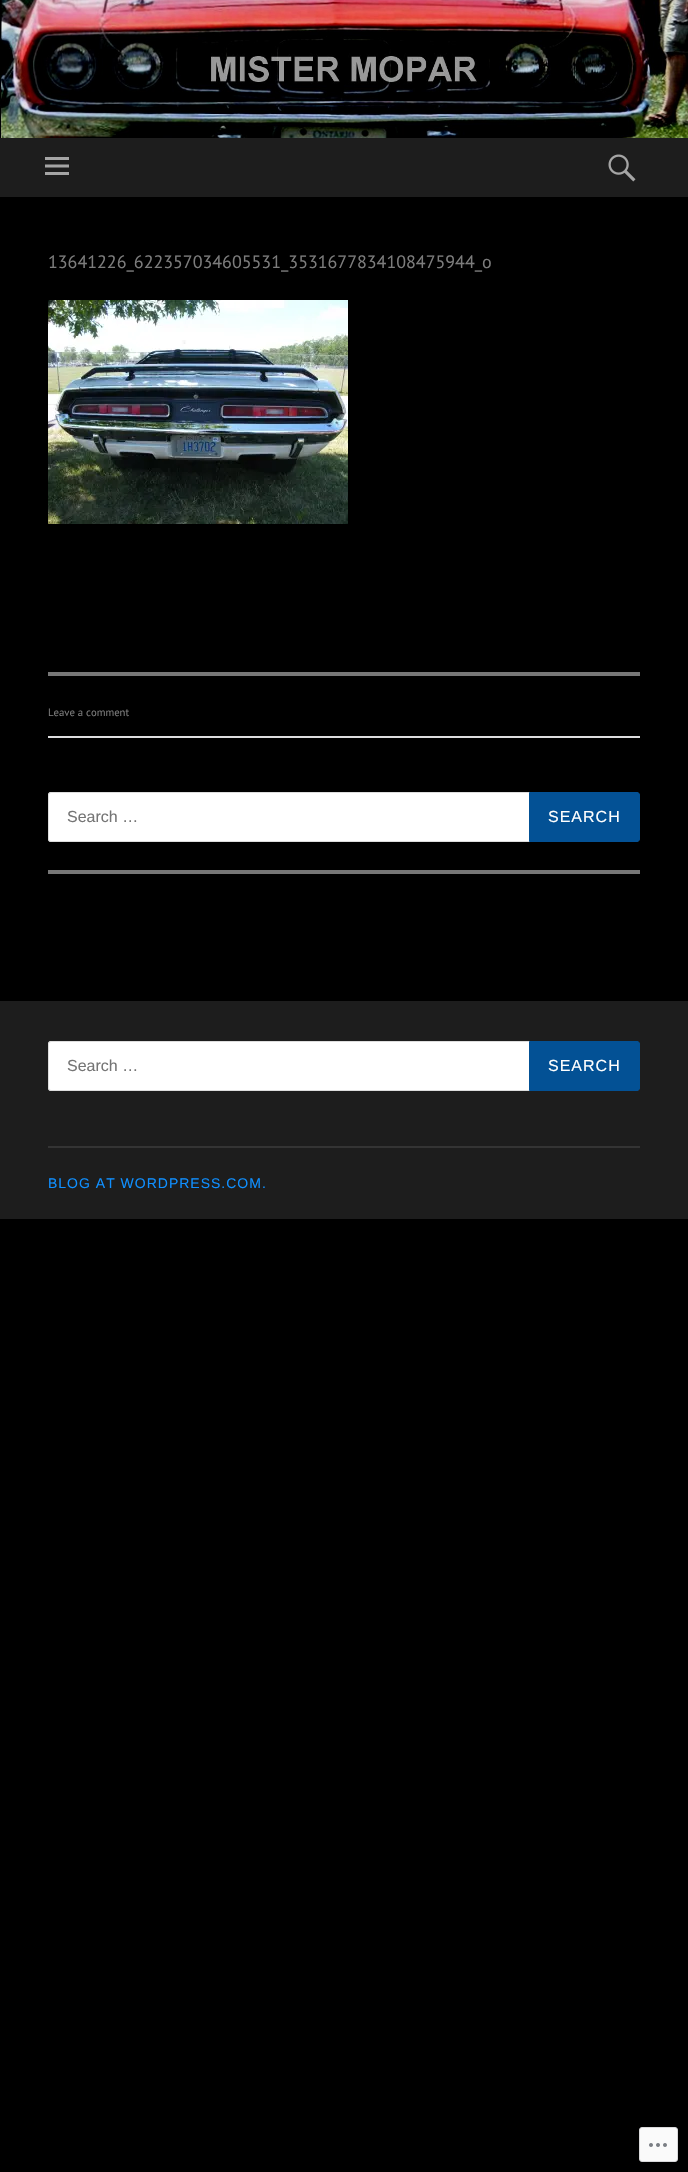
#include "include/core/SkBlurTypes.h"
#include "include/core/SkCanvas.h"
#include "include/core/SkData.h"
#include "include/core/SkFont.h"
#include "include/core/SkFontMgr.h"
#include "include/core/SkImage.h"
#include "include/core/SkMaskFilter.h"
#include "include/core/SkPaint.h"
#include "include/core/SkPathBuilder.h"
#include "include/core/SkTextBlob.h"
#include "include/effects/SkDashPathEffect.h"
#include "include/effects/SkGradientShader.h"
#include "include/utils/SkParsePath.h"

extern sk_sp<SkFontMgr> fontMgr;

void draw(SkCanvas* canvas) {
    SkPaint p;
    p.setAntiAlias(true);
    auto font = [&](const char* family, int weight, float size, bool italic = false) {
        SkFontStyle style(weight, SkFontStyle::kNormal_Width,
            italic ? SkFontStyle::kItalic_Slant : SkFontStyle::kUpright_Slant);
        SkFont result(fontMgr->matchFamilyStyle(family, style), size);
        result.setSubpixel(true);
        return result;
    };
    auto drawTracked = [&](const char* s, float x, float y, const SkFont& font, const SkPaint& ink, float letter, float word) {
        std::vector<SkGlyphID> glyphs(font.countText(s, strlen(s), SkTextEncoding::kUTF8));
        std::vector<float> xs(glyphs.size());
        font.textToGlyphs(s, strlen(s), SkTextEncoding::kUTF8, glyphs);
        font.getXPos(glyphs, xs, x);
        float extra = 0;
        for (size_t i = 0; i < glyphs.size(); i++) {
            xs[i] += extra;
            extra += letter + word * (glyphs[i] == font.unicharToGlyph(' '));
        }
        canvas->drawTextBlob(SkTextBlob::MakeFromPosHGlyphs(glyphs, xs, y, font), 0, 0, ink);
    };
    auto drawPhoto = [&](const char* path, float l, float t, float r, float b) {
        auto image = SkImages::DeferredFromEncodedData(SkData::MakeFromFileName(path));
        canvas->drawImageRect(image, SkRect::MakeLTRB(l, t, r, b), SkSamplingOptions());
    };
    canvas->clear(0xFF000000);
    drawPhoto("media/1.png", 0, 0, 688, 138);
    p.setColor(0xFF1D1D1D);
    canvas->drawRect(SkRect::MakeLTRB(0, 138, 688, 197), p);
    drawPhoto("media/2.png", 45, 157, 69, 175);
    drawPhoto("media/3.png", 608, 154, 636, 182);
    p.setColor(0xFF777777);
    canvas->drawRect(SkRect::MakeLTRB(48, 672, 640, 676), p);
    auto font1 = font("PT Sans", 400, 18);
    p.setColor(0xFF7C7C7C);
    canvas->drawString("13641226_622357034605531_3531677834108475944_o", 48, 268, font1, p);
    drawPhoto("media/4.png", 48, 300, 348, 524);
    auto font2 = font("PT Sans", 400, 10.75f);
    canvas->drawString("Leave a comment", 48, 716, font2, p);
    p.setColor(0xFFDCDCDE);
    canvas->drawRect(SkRect::MakeLTRB(48, 736, 640, 738), p);
    p.setColor(0xFF777777);
    canvas->drawRect(SkRect::MakeLTRB(48, 870, 640, 874), p);
    p.setColor(0xFFFFFFFF);
    canvas->drawPath(SkPathBuilder().moveTo(51, 792).lineTo(634, 792).lineTo(634, 842).lineTo(51, 842).cubicTo(49.5f, 842, 48, 840.5f, 48, 839).lineTo(48, 795).cubicTo(48, 793.5f, 49.5f, 792, 51, 792).close().detach(), p);
    p.setColor(0xFFDDDDDD);
    canvas->drawPath(SkPathBuilder(SkPathFillType::kEvenOdd).moveTo(51, 792).lineTo(634, 792).lineTo(634, 842).lineTo(51, 842).cubicTo(49, 842, 48, 841, 48, 839).lineTo(48, 795).cubicTo(48, 793, 49, 792, 51, 792).close().moveTo(51, 793).lineTo(634, 793).lineTo(634, 841).lineTo(51, 841).cubicTo(50, 841, 49, 840, 49, 839).lineTo(49, 795).cubicTo(49, 794, 50, 793, 51, 793).close().detach(), p);
    auto font3 = font("Arimo", 400, 16);
    p.setColor(0xFF757575);
    canvas->drawString("Search …", 67, 822, font3, p);
    p.setColor(0xFF035195);
    canvas->drawPath(SkPathBuilder().moveTo(529.5f, 792.5f).lineTo(637, 792.5f).cubicTo(638.5f, 792.5f, 639.5f, 793.5f, 639.5f, 795).lineTo(639.5f, 839).cubicTo(639.5f, 840.5f, 638.5f, 841.5f, 637, 841.5f).lineTo(529.5f, 841.5f).close().detach(), p);
    p.setStyle(SkPaint::kStroke_Style);
    p.setStrokeWidth(1);
    canvas->drawPath(SkPathBuilder().moveTo(529.5f, 792.5f).lineTo(637, 792.5f).cubicTo(638.5f, 792.5f, 639.5f, 793.5f, 639.5f, 795).lineTo(639.5f, 839).cubicTo(639.5f, 840.5f, 638.5f, 841.5f, 637, 841.5f).lineTo(529.5f, 841.5f).close().detach(), p);
    p.setStyle(SkPaint::kFill_Style);
    p.setColor(0xFFFFFFFF);
    drawTracked("SEARCH", 548, 822, font3, p, 1, 0);
    p.setColor(0xFF1D1D1D);
    canvas->drawRect(SkRect::MakeLTRB(0, 1001, 688, 1219), p);
    p.setColor(0xFFFFFFFF);
    canvas->drawPath(SkPathBuilder().moveTo(51, 1041).lineTo(634, 1041).lineTo(634, 1091).lineTo(51, 1091).cubicTo(49.5f, 1091, 48, 1089.5f, 48, 1088).lineTo(48, 1044).cubicTo(48, 1042.5f, 49.5f, 1041, 51, 1041).close().detach(), p);
    p.setColor(0xFFDDDDDD);
    canvas->drawPath(SkPathBuilder(SkPathFillType::kEvenOdd).moveTo(51, 1041).lineTo(634, 1041).lineTo(634, 1091).lineTo(51, 1091).cubicTo(49, 1091, 48, 1090, 48, 1088).lineTo(48, 1044).cubicTo(48, 1042, 49, 1041, 51, 1041).close().moveTo(51, 1042).lineTo(634, 1042).lineTo(634, 1090).lineTo(51, 1090).cubicTo(50, 1090, 49, 1089, 49, 1088).lineTo(49, 1044).cubicTo(49, 1043, 50, 1042, 51, 1042).close().detach(), p);
    p.setColor(0xFF757575);
    canvas->drawString("Search …", 67, 1071, font3, p);
    p.setColor(0xFF035195);
    canvas->drawPath(SkPathBuilder().moveTo(529.5f, 1041.5f).lineTo(637, 1041.5f).cubicTo(638.5f, 1041.5f, 639.5f, 1042.5f, 639.5f, 1044).lineTo(639.5f, 1088).cubicTo(639.5f, 1089.5f, 638.5f, 1090.5f, 637, 1090.5f).lineTo(529.5f, 1090.5f).close().detach(), p);
    p.setStyle(SkPaint::kStroke_Style);
    canvas->drawPath(SkPathBuilder().moveTo(529.5f, 1041.5f).lineTo(637, 1041.5f).cubicTo(638.5f, 1041.5f, 639.5f, 1042.5f, 639.5f, 1044).lineTo(639.5f, 1088).cubicTo(639.5f, 1089.5f, 638.5f, 1090.5f, 637, 1090.5f).lineTo(529.5f, 1090.5f).close().detach(), p);
    p.setStyle(SkPaint::kFill_Style);
    p.setColor(0xFFFFFFFF);
    drawTracked("SEARCH", 548, 1071, font3, p, 1, 0);
    p.setColor(0xFF343434);
    canvas->drawRect(SkRect::MakeLTRB(48, 1146, 640, 1148), p);
    auto font4 = font("Arimo", 400, 14);
    p.setColor(0xFF0F8FFF);
    drawTracked("BLOG AT WORDPRESS.COM.", 48, 1188, font4, p, 1, 0);
    p.setColor(0xFFFAFAFA);
    canvas->drawRoundRect(SkRect::MakeLTRB(639.5f, 2127.5f, 677.5f, 2161.5f), 2.5f, 2.5f, p);
    p.setStyle(SkPaint::kStroke_Style);
    p.setColor(0xFFD8D8DA);
    canvas->drawRoundRect(SkRect::MakeLTRB(639.5f, 2127.5f, 677.5f, 2161.5f), 2.5f, 2.5f, p);
    drawPhoto("media/5.png", 649, 2143, 667, 2147);
}
